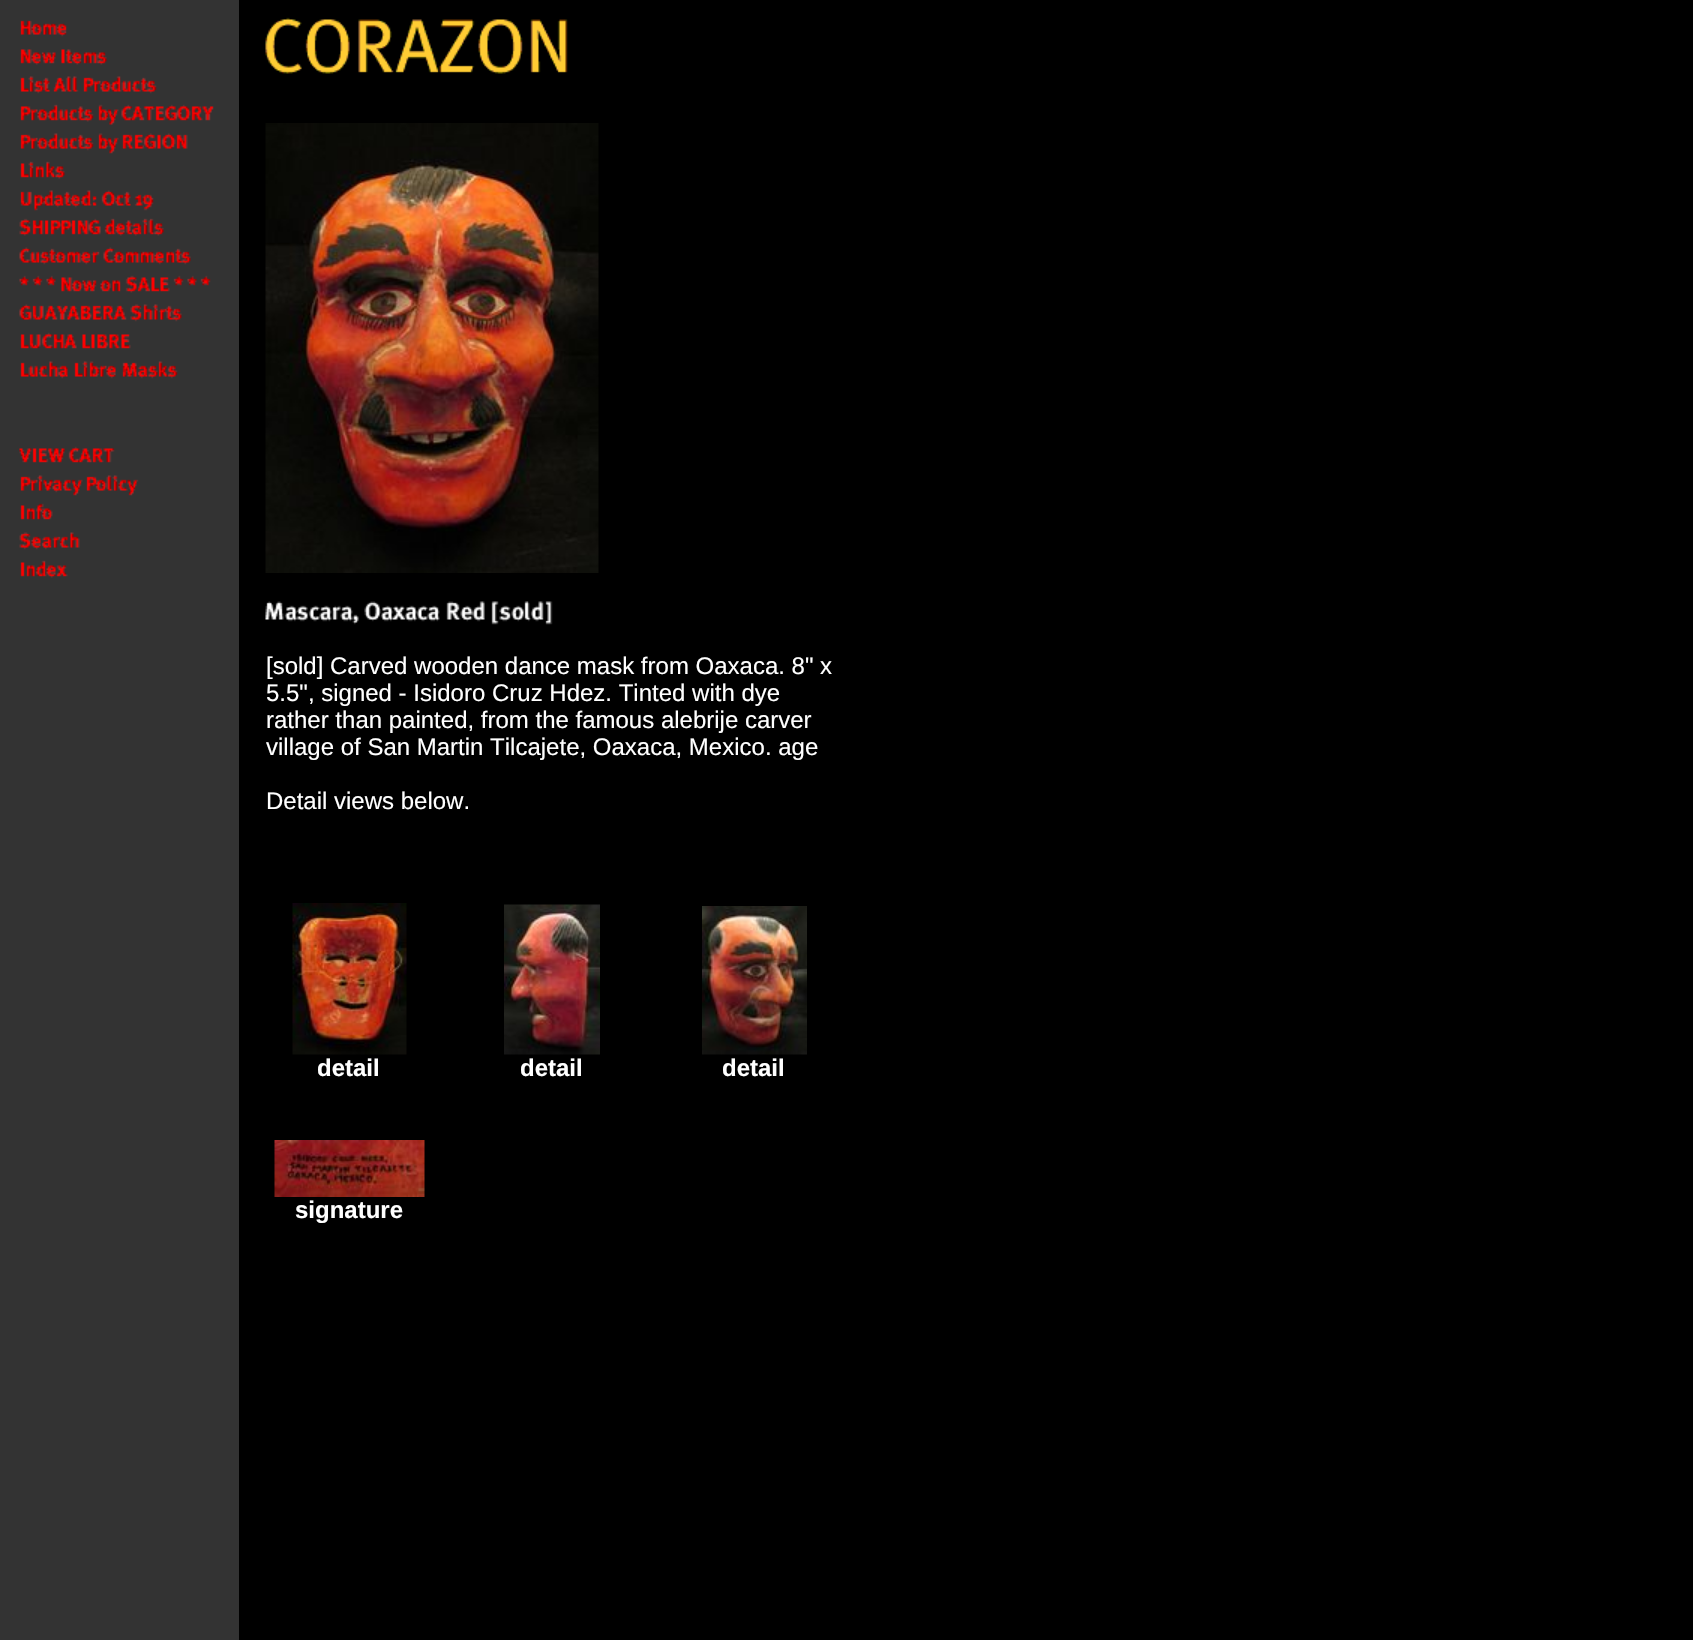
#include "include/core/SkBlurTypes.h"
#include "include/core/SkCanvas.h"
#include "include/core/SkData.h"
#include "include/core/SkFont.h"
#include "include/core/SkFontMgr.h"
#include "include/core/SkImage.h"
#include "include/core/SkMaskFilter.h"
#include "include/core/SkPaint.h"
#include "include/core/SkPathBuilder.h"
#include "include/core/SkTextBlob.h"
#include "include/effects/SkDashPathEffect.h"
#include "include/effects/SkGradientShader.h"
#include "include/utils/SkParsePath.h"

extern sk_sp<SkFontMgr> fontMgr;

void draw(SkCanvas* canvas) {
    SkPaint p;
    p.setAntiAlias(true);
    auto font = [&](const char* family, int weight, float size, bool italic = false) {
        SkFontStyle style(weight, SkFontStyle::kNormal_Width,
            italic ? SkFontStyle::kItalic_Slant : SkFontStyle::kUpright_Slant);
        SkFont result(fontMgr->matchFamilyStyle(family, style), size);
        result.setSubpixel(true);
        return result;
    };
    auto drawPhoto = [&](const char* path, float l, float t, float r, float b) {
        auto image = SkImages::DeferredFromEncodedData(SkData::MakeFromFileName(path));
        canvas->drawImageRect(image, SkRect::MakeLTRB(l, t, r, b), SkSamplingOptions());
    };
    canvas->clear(0xFF000000);
    p.setColor(0xFF333333);
    canvas->drawRect(SkRect::MakeLTRB(0, 0, 239, 1640), p);
    drawPhoto("media/1.png", 19, 20, 214, 578);
    drawPhoto("media/2.png", 265, 17, 568, 74);
    drawPhoto("media/3.png", 265, 123, 599, 573);
    drawPhoto("media/4.png", 265, 601, 553, 625);
    auto font1 = font("Liberation Sans", 400, 24);
    p.setColor(0xFFFFFFFF);
    {
        const struct { const char* s; float x, y; } items[] = {
            {"[sold] Carved wooden dance mask from Oaxaca. 8\" x", 266, 674},
            {"5.5\", signed - Isidoro Cruz Hdez. Tinted with dye", 266, 701},
            {"rather than painted, from the famous alebrije carver", 266, 728},
            {"village of San Martin Tilcajete, Oaxaca, Mexico. age", 266, 755},
            {"Detail views below.", 266, 809},
        };
        for (auto [s, x, y] : items) {
            canvas->drawString(s, x, y, font1, p);
        }
    }
    drawPhoto("media/5.png", 292, 903, 407, 1055);
    drawPhoto("media/6.png", 504, 904, 600, 1055);
    drawPhoto("media/7.png", 702, 906, 807, 1055);
    auto font2 = font("Liberation Sans", 700, 24);
    {
        const struct { const char* s; float x, y; } items[] = {
            {"detail", 317, 1076},
            {"detail", 520, 1076},
            {"detail", 722, 1076},
        };
        for (auto [s, x, y] : items) {
            canvas->drawString(s, x, y, font2, p);
        }
    }
    drawPhoto("media/8.png", 274, 1140, 425, 1197);
    canvas->drawString("signature", 295, 1218, font2, p);
}
